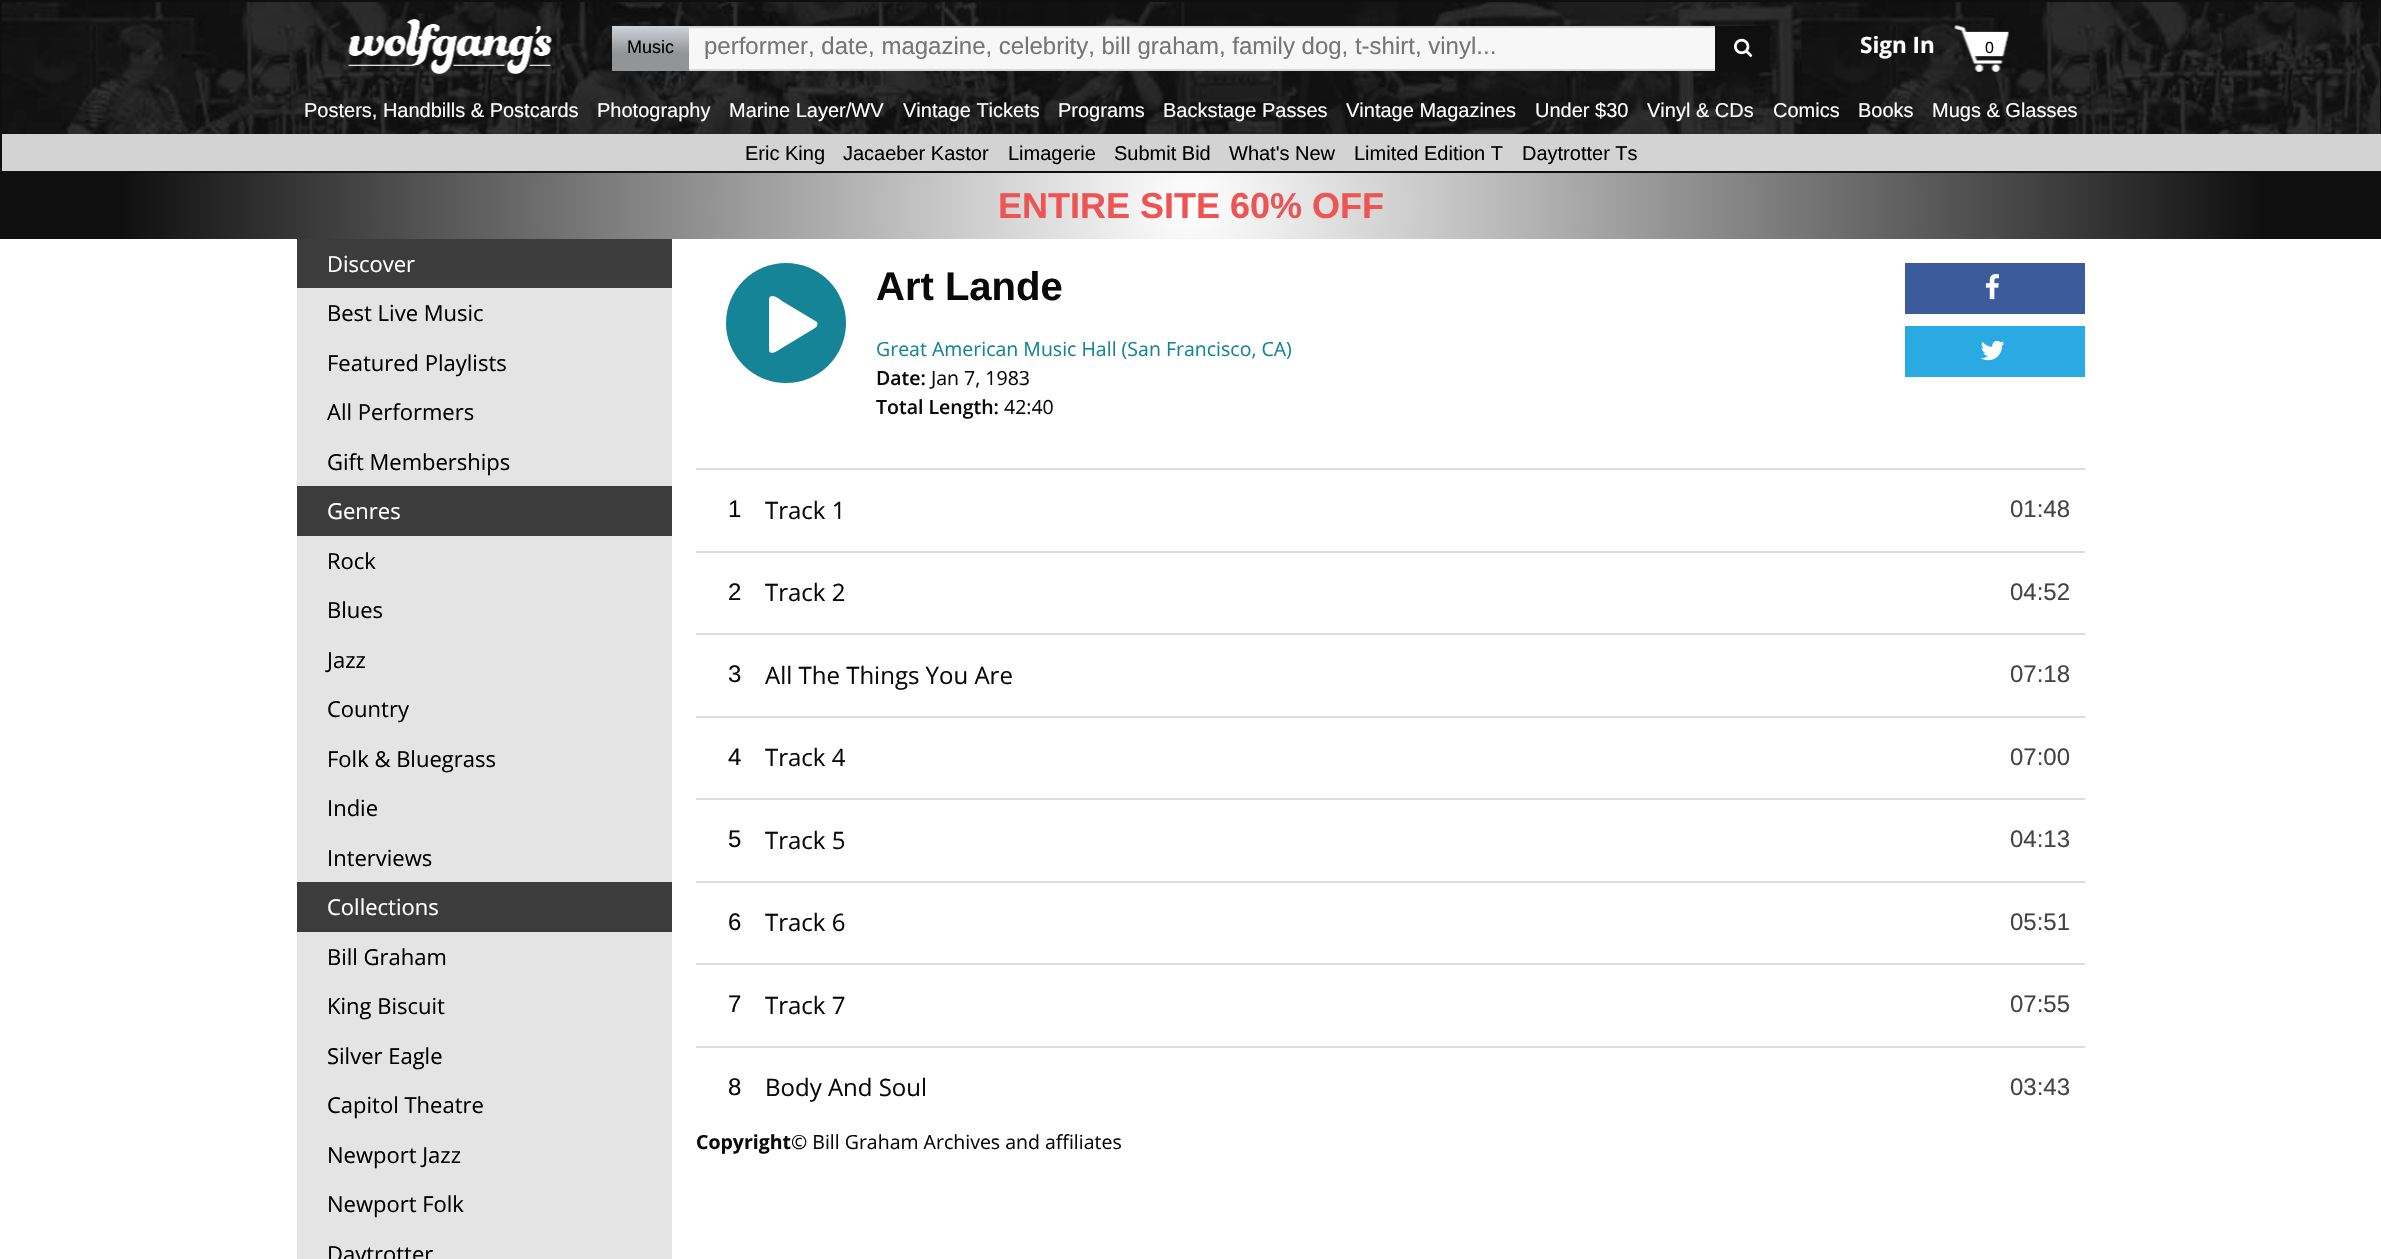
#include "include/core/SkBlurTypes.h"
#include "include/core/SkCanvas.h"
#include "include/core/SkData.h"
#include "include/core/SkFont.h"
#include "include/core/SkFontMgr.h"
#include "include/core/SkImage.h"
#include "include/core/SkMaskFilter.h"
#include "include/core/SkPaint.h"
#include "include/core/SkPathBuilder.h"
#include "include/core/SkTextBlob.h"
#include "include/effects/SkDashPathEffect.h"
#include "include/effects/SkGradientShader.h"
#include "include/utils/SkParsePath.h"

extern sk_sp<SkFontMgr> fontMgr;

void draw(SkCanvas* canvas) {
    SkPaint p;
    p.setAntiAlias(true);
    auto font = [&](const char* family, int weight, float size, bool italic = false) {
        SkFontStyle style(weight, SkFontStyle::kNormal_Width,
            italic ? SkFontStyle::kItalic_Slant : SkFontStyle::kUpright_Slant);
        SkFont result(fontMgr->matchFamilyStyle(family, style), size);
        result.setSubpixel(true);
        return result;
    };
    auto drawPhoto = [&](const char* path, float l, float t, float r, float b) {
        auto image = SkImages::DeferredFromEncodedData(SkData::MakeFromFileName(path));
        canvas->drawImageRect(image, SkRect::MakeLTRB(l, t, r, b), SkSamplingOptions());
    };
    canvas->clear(0xFFFFFFFF);
    drawPhoto("media/1.png", 2, 2, 2380, 134);
    p.setStyle(SkPaint::kStroke_Style);
    p.setStrokeWidth(2);
    p.setColor(0xFF0F0F0F);
    canvas->drawRect(SkRect::MakeLTRB(1, 1, 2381, 172), p);
    drawPhoto("media/2.png", 348, 19, 552, 74);
    p.setStyle(SkPaint::kFill_Style);
    {
        const SkColor colors[] = {0xFFD2D7DD, 0xFF929496};
        const float stops[] = {0, 0.61f};
        const SkPoint ends[] = {{650, 25}, {650, 71}};
        p.setShader(SkGradientShader::MakeLinear(ends, colors, stops, 2, SkTileMode::kClamp));
        p.setAlpha(255);
    }
    canvas->drawRect(SkRect::MakeLTRB(612, 26, 689, 71), p);
    auto font1 = font("Liberation Sans", 400, 18);
    p.setShader(nullptr);
    p.setColor(0xFF000000);
    canvas->drawString("Music", 627, 53, font1, p);
    {
        const struct { float l, t, r, b; SkColor color; } items[] = {
            {689, 28, 1715, 69, 0xFFF7F7F7},
            {689, 26, 1715, 28, 0xFFD7D7D7},
            {689, 69, 1715, 71, 0xFFD7D7D7},
        };
        for (auto [l, t, r, b, color] : items) {
            p.setColor(color);
            canvas->drawRect(SkRect::MakeLTRB(l, t, r, b), p);
        }
    }
    auto font2 = font("Liberation Sans", 400, 24);
    p.setColor(0xFF757575);
    canvas->drawString("performer, date, magazine, celebrity, bill graham, family dog, t-shirt, vinyl...", 704, 54, font2, p);
    p.setColor(0xFF0F0F0F);
    canvas->drawRect(SkRect::MakeLTRB(1715, 26, 1770, 72), p);
    drawPhoto("media/3.png", 1734, 38, 1753, 57);
    drawPhoto("media/4.png", 1954, 25, 2009, 72);
    auto font3 = font("Open Sans", 700, 22.5f);
    p.setColor(0xFFFFFFFF);
    canvas->drawString("Sign In", 1860, 53, font3, p);
    auto font4 = font("Liberation Sans", 400, 16);
    p.setColor(0xFF000000);
    canvas->drawString("0", 1985, 53, font4, p);
    auto font5 = font("Liberation Sans", 400, 20);
    p.setColor(0xFFFFFFFF);
    {
        const struct { const char* s; float x, y; } items[] = {
            {"Posters, Handbills & Postcards", 304, 117},
            {"Photography", 597, 117},
            {"Marine Layer/WV", 729, 117},
            {"Vintage Tickets", 903, 117},
            {"Programs", 1058, 117},
            {"Backstage Passes", 1163, 117},
            {"Vintage Magazines", 1346, 117},
            {"Under $30", 1535, 117},
            {"Vinyl & CDs", 1647, 117},
            {"Comics", 1773, 117},
            {"Books", 1858, 117},
            {"Mugs & Glasses", 1932, 117},
        };
        for (auto [s, x, y] : items) {
            canvas->drawString(s, x, y, font5, p);
        }
    }
    p.setColor(0xFFD3D3D3);
    canvas->drawRect(SkRect::MakeLTRB(2, 134, 2381, 171), p);
    p.setColor(0xFF000000);
    {
        const struct { const char* s; float x, y; } items[] = {
            {"Eric King", 745, 160},
            {"Jacaeber Kastor", 843, 160},
            {"Limagerie", 1008, 160},
            {"Submit Bid", 1114, 160},
            {"What's New", 1229, 160},
            {"Limited Edition T", 1354, 160},
            {"Daytrotter Ts", 1522, 160},
        };
        for (auto [s, x, y] : items) {
            canvas->drawString(s, x, y, font5, p);
        }
    }
    {
        const SkColor colors[] = {0xFFFFFFFF, 0xFF0F0F0F};
        const float stops[] = {0, 0.9f};
        p.setShader(SkGradientShader::MakeRadial({1191, 206}, 1191, colors, stops, 2, SkTileMode::kClamp));
        p.setAlpha(255);
    }
    canvas->drawRect(SkRect::MakeLTRB(0, 173, 2381, 239), p);
    auto font6 = font("Liberation Sans", 700, 36);
    p.setShader(nullptr);
    p.setColor(0xFFEE5454);
    canvas->drawString("ENTIRE SITE 60% OFF", 998, 218, font6, p);
    p.setColor(0xFF3C3C3C);
    canvas->drawRect(SkRect::MakeLTRB(297, 239, 672, 288), p);
    auto font7 = font("Open Sans", 400, 22);
    p.setColor(0xFFFFFFFF);
    canvas->drawString("Discover", 327, 272, font7, p);
    p.setColor(0xFFE4E4E4);
    canvas->drawRect(SkRect::MakeLTRB(297, 288, 672, 486), p);
    p.setColor(0xFF000000);
    {
        const struct { const char* s; float x, y; } items[] = {
            {"Best Live Music", 327, 321},
            {"Featured Playlists", 327, 371},
            {"All Performers", 327, 420},
            {"Gift Memberships", 327, 470},
        };
        for (auto [s, x, y] : items) {
            canvas->drawString(s, x, y, font7, p);
        }
    }
    p.setColor(0xFF3C3C3C);
    canvas->drawRect(SkRect::MakeLTRB(297, 486, 672, 536), p);
    p.setColor(0xFFFFFFFF);
    canvas->drawString("Genres", 327, 519, font7, p);
    p.setColor(0xFFE4E4E4);
    canvas->drawRect(SkRect::MakeLTRB(297, 536, 672, 882), p);
    p.setColor(0xFF000000);
    {
        const struct { const char* s; float x, y; } items[] = {
            {"Rock", 327, 569},
            {"Blues", 327, 618},
            {"Jazz", 327, 668},
            {"Country", 327, 717},
            {"Folk & Bluegrass", 327, 767},
            {"Indie", 327, 816},
            {"Interviews", 327, 866},
        };
        for (auto [s, x, y] : items) {
            canvas->drawString(s, x, y, font7, p);
        }
    }
    p.setColor(0xFF3C3C3C);
    canvas->drawRect(SkRect::MakeLTRB(297, 882, 672, 932), p);
    p.setColor(0xFFFFFFFF);
    canvas->drawString("Collections", 327, 915, font7, p);
    p.setColor(0xFFE4E4E4);
    canvas->drawRect(SkRect::MakeLTRB(297, 932, 672, 1259), p);
    p.setColor(0xFF000000);
    {
        const struct { const char* s; float x, y; } items[] = {
            {"Bill Graham", 327, 965},
            {"King Biscuit", 327, 1014},
            {"Silver Eagle", 327, 1064},
            {"Capitol Theatre", 327, 1113},
            {"Newport Jazz", 327, 1163},
            {"Newport Folk", 327, 1212},
            {"Daytrotter", 327, 1262},
        };
        for (auto [s, x, y] : items) {
            canvas->drawString(s, x, y, font7, p);
        }
    }
    p.setColor(0xFF158496);
    canvas->drawCircle(786, 323, 60, p);
    p.setColor(0xFFFFFFFF);
    canvas->drawPath(SkPathBuilder().moveTo(815, 328).lineTo(782, 348).cubicTo(780, 349, 770, 357, 769, 350).lineTo(769, 299).cubicTo(770, 292, 780, 299, 782, 301).lineTo(817, 322).cubicTo(818, 324, 817, 327, 815, 328).close().detach(), p);
    auto font8 = font("Liberation Sans", 700, 40);
    p.setColor(0xFF0A0A0A);
    canvas->drawString("Art Lande", 876, 300, font8, p);
    auto font9 = font("Open Sans", 400, 19.5f);
    p.setColor(0xFF158496);
    canvas->drawString("Great American Music Hall (San Francisco, CA)", 876, 356, font9, p);
    auto font10 = font("Open Sans", 600, 19.5f);
    p.setColor(0xFF0A0A0A);
    canvas->drawString("Date:", 876, 385, font10, p);
    canvas->drawString("Jan 7, 1983", 931, 385, font9, p);
    canvas->drawString("Total Length:", 876, 414, font10, p);
    canvas->drawString("42:40", 1004, 414, font9, p);
    p.setColor(0xFF3C5B9B);
    canvas->drawRect(SkRect::MakeLTRB(1905, 263, 2085, 314), p);
    drawPhoto("media/5.png", 1985, 274, 1999, 300);
    p.setColor(0xFF29AAE3);
    canvas->drawRect(SkRect::MakeLTRB(1905, 326, 2085, 377), p);
    drawPhoto("media/6.png", 1980, 340, 2005, 361);
    p.setColor(0xFFDDDDDD);
    canvas->drawRect(SkRect::MakeLTRB(696, 468, 2085, 470), p);
    p.setColor(0xFF0A0A0A);
    canvas->drawString("1", 728, 517, font2, p);
    auto font11 = font("Open Sans", 400, 24);
    canvas->drawString("Track 1", 765, 519, font11, p);
    p.setColor(0xFF444444);
    canvas->drawString("01:48", 2010, 517, font2, p);
    p.setColor(0xFFDDDDDD);
    canvas->drawRect(SkRect::MakeLTRB(696, 551, 2085, 553), p);
    p.setColor(0xFF0A0A0A);
    canvas->drawString("2", 728, 600, font2, p);
    canvas->drawString("Track 2", 765, 601, font11, p);
    p.setColor(0xFF444444);
    canvas->drawString("04:52", 2010, 600, font2, p);
    p.setColor(0xFFDDDDDD);
    canvas->drawRect(SkRect::MakeLTRB(696, 633, 2085, 635), p);
    p.setColor(0xFF0A0A0A);
    canvas->drawString("3", 728, 682, font2, p);
    canvas->drawString("All The Things You Are", 765, 684, font11, p);
    p.setColor(0xFF444444);
    canvas->drawString("07:18", 2010, 682, font2, p);
    p.setColor(0xFFDDDDDD);
    canvas->drawRect(SkRect::MakeLTRB(696, 716, 2085, 718), p);
    p.setColor(0xFF0A0A0A);
    canvas->drawString("4", 728, 765, font2, p);
    canvas->drawString("Track 4", 765, 766, font11, p);
    p.setColor(0xFF444444);
    canvas->drawString("07:00", 2010, 765, font2, p);
    p.setColor(0xFFDDDDDD);
    canvas->drawRect(SkRect::MakeLTRB(696, 798, 2085, 800), p);
    p.setColor(0xFF0A0A0A);
    canvas->drawString("5", 728, 847, font2, p);
    canvas->drawString("Track 5", 765, 849, font11, p);
    p.setColor(0xFF444444);
    canvas->drawString("04:13", 2010, 847, font2, p);
    p.setColor(0xFFDDDDDD);
    canvas->drawRect(SkRect::MakeLTRB(696, 881, 2085, 883), p);
    p.setColor(0xFF0A0A0A);
    canvas->drawString("6", 728, 930, font2, p);
    canvas->drawString("Track 6", 765, 931, font11, p);
    p.setColor(0xFF444444);
    canvas->drawString("05:51", 2010, 930, font2, p);
    p.setColor(0xFFDDDDDD);
    canvas->drawRect(SkRect::MakeLTRB(696, 963, 2085, 965), p);
    p.setColor(0xFF0A0A0A);
    canvas->drawString("7", 728, 1012, font2, p);
    canvas->drawString("Track 7", 765, 1014, font11, p);
    p.setColor(0xFF444444);
    canvas->drawString("07:55", 2010, 1012, font2, p);
    p.setColor(0xFFDDDDDD);
    canvas->drawRect(SkRect::MakeLTRB(696, 1046, 2085, 1048), p);
    p.setColor(0xFF0A0A0A);
    canvas->drawString("8", 728, 1095, font2, p);
    canvas->drawString("Body And Soul", 765, 1096, font11, p);
    p.setColor(0xFF444444);
    canvas->drawString("03:43", 2010, 1095, font2, p);
    auto font12 = font("Open Sans", 700, 19.5f);
    p.setColor(0xFF0A0A0A);
    canvas->drawString("Copyright", 696, 1149, font12, p);
    canvas->drawString("© Bill Graham Archives and affiliates", 791, 1149, font9, p);
}
